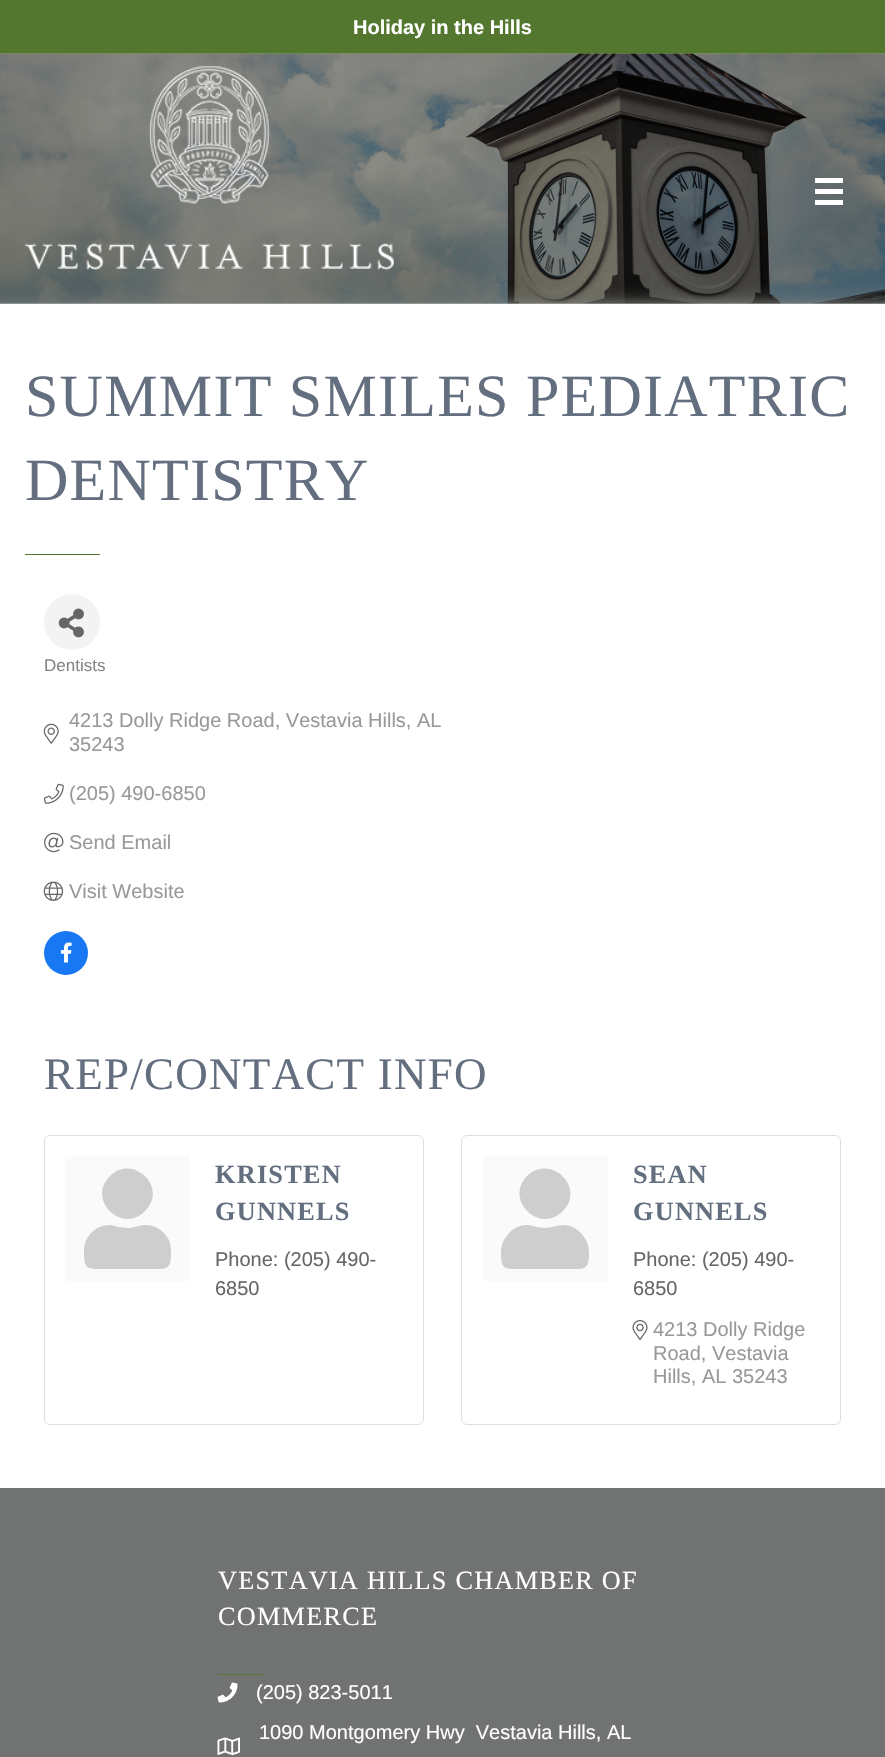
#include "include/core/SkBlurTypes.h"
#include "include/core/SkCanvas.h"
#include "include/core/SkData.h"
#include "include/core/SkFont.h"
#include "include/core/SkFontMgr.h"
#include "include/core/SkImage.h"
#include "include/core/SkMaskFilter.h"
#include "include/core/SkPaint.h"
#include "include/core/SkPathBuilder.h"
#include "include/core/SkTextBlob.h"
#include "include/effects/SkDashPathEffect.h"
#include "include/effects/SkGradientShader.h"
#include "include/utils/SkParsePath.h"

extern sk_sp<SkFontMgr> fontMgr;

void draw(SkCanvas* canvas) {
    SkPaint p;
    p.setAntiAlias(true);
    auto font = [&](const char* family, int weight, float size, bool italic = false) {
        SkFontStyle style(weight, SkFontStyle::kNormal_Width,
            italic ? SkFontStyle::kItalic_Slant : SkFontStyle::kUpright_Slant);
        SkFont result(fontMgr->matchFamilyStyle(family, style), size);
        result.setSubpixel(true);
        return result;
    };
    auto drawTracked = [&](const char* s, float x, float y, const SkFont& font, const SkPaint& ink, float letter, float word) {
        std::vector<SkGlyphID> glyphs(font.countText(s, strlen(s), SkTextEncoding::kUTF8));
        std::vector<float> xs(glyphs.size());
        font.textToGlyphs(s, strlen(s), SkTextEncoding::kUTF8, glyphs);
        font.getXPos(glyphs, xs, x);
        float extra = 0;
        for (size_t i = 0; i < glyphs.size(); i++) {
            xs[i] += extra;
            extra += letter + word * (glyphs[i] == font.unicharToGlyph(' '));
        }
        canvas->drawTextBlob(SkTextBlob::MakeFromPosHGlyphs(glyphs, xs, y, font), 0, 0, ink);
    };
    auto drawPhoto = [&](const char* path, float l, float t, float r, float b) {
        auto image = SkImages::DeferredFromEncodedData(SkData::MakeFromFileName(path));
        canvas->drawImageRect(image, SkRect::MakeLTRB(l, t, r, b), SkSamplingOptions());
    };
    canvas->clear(0xFF547730);
    auto font1 = font("Liberation Sans", 700, 20);
    p.setColor(0xFFFFFFFF);
    canvas->drawString("Holiday in the Hills", 353, 34, font1, p);
    canvas->drawRect(SkRect::MakeLTRB(0, 303, 885, 1488), p);
    drawPhoto("media/2.png", 0, 53, 885, 304);
    drawPhoto("media/1.png", 25, 66, 394, 271);
    {
        const struct { float l, t, r, b; SkColor color; } items[] = {
            {815, 178, 843, 183, 0xFFFFFFFF},
            {815, 189, 843, 194, 0xFFFFFFFF},
            {815, 200, 843, 205, 0xFFFFFFFF},
        };
        for (auto [l, t, r, b, color] : items) {
            p.setColor(color);
            canvas->drawRect(SkRect::MakeLTRB(l, t, r, b), p);
        }
    }
    auto font2 = font("Liberation Serif", 400, 60);
    p.setColor(0xFF636E7F);
    drawTracked("SUMMIT SMILES PEDIATRIC", 25, 416, font2, p, 1.25f, 0);
    drawTracked("DENTISTRY", 25, 500, font2, p, 1.25f, 0);
    p.setColor(0xFF547730);
    canvas->drawRect(SkRect::MakeLTRB(25, 554, 100, 555), p);
    p.setColor(0xFFF3F3F3);
    canvas->drawCircle(72, 622, 28, p);
    drawPhoto("media/3.png", 58, 608, 84, 638);
    auto font3 = font("Liberation Sans", 400, 17);
    p.setColor(0xFF858585);
    canvas->drawString("Dentists", 44, 671, font3, p);
    drawPhoto("media/4.png", 43, 723, 59, 744);
    auto font4 = font("Liberation Sans", 400, 20);
    p.setColor(0xFF999999);
    canvas->drawString("4213 Dolly Ridge Road, Vestavia Hills, AL", 69, 727, font4, p);
    canvas->drawString("35243", 69, 751, font4, p);
    drawPhoto("media/5.png", 43, 783, 64, 804);
    canvas->drawString("(205) 490-6850", 69, 800, font4, p);
    drawPhoto("media/6.png", 44, 832, 64, 853);
    canvas->drawString("Send Email", 69, 849, font4, p);
    drawPhoto("media/7.png", 43, 881, 64, 901);
    canvas->drawString("Visit Website", 69, 898, font4, p);
    p.setColor(0xFF1877F2);
    canvas->drawCircle(66, 953, 22, p);
    drawPhoto("media/8.png", 60, 942, 72, 963);
    auto font5 = font("Liberation Serif", 400, 45);
    p.setColor(0xFF636E7F);
    drawTracked("REP/CONTACT INFO", 44, 1089, font5, p, 1.25f, 0);
    p.setStyle(SkPaint::kStroke_Style);
    p.setStrokeWidth(1);
    p.setColor(0xFFDFDFDF);
    canvas->drawRoundRect(SkRect::MakeLTRB(44.5f, 1135.5f, 423.5f, 1424.5f), 5.5f, 5.5f, p);
    p.setStyle(SkPaint::kFill_Style);
    p.setColor(0xFFFAFAFA);
    canvas->drawRect(SkRect::MakeLTRB(65, 1156, 190, 1281), p);
    p.setColor(0xFFCECECE);
    canvas->drawPath(SkPathBuilder().moveTo(145, 1211).cubicTo(122, 1235, 86, 1199, 110, 1176).cubicTo(133, 1153, 169, 1188, 145, 1211).close().moveTo(145, 1225).cubicTo(154, 1225, 162, 1229, 167, 1237).cubicTo(171, 1242, 171, 1248, 171, 1254).cubicTo(171, 1271, 165, 1269, 150, 1269).lineTo(105, 1269).cubicTo(90, 1269, 84, 1271, 84, 1254).cubicTo(84, 1248, 84, 1242, 88, 1237).cubicTo(93, 1229, 101, 1225, 110, 1225).cubicTo(113, 1225, 115, 1226, 118, 1227).lineTo(128, 1228).cubicTo(134, 1228, 139, 1225, 145, 1225).close().detach(), p);
    auto font6 = font("Liberation Serif", 700, 26.25f);
    p.setColor(0xFF636E7F);
    drawTracked("KRISTEN", 215, 1183, font6, p, 1.25f, 0);
    drawTracked("GUNNELS", 215, 1220, font6, p, 1.25f, 0);
    p.setColor(0xFF666666);
    canvas->drawString("Phone: (205) 490-", 215, 1266, font4, p);
    canvas->drawString("6850", 215, 1295, font4, p);
    p.setStyle(SkPaint::kStroke_Style);
    p.setColor(0xFFDFDFDF);
    canvas->drawRoundRect(SkRect::MakeLTRB(461.5f, 1135.5f, 840.5f, 1424.5f), 5.5f, 5.5f, p);
    p.setStyle(SkPaint::kFill_Style);
    p.setColor(0xFFFAFAFA);
    canvas->drawRect(SkRect::MakeLTRB(483, 1156, 608, 1281), p);
    p.setColor(0xFFCECECE);
    canvas->drawPath(SkPathBuilder().moveTo(563, 1211).cubicTo(539, 1235, 504, 1199, 527, 1176).cubicTo(551, 1153, 586, 1188, 563, 1211).close().moveTo(563, 1225).cubicTo(571, 1225, 579, 1229, 584, 1237).cubicTo(588, 1242, 589, 1248, 589, 1254).cubicTo(589, 1271, 583, 1269, 568, 1269).lineTo(522, 1269).cubicTo(507, 1269, 501, 1271, 501, 1254).cubicTo(501, 1248, 502, 1242, 506, 1237).cubicTo(511, 1229, 519, 1225, 527, 1225).cubicTo(531, 1225, 533, 1226, 536, 1227).lineTo(545, 1228).cubicTo(551, 1228, 557, 1225, 563, 1225).close().detach(), p);
    p.setColor(0xFF636E7F);
    drawTracked("SEAN", 633, 1183, font6, p, 1.25f, 0);
    drawTracked("GUNNELS", 633, 1220, font6, p, 1.25f, 0);
    p.setColor(0xFF666666);
    canvas->drawString("Phone: (205) 490-", 633, 1266, font4, p);
    canvas->drawString("6850", 633, 1295, font4, p);
    drawPhoto("media/9.png", 632, 1320, 648, 1340);
    p.setColor(0xFF999999);
    {
        const struct { const char* s; float x, y; } items[] = {
            {"4213 Dolly Ridge", 653, 1336},
            {"Road, Vestavia", 653, 1360},
            {"Hills, AL 35243", 653, 1383},
        };
        for (auto [s, x, y] : items) {
            canvas->drawString(s, x, y, font4, p);
        }
    }
    p.setColor(0xFF707372);
    canvas->drawRect(SkRect::MakeLTRB(0, 1488, 885, 1757), p);
    auto font7 = font("Liberation Serif", 400, 26.25f);
    p.setColor(0xFFFFFFFF);
    drawTracked("VESTAVIA HILLS CHAMBER OF", 218, 1589, font7, p, 1.25f, 0);
    drawTracked("COMMERCE", 218, 1625, font7, p, 1.25f, 0);
    p.setColor(0xFF547730);
    canvas->drawRect(SkRect::MakeLTRB(218, 1674, 263, 1675), p);
    drawPhoto("media/10.png", 217, 1682, 238, 1703);
    p.setColor(0xFFFFFFFF);
    canvas->drawString("(205) 823-5011", 256, 1699, font4, p);
    canvas->drawString("1090 Montgomery Hwy  Vestavia Hills, AL", 259, 1739, font4, p);
    drawPhoto("media/11.png", 217, 1737, 240, 1755);
}
